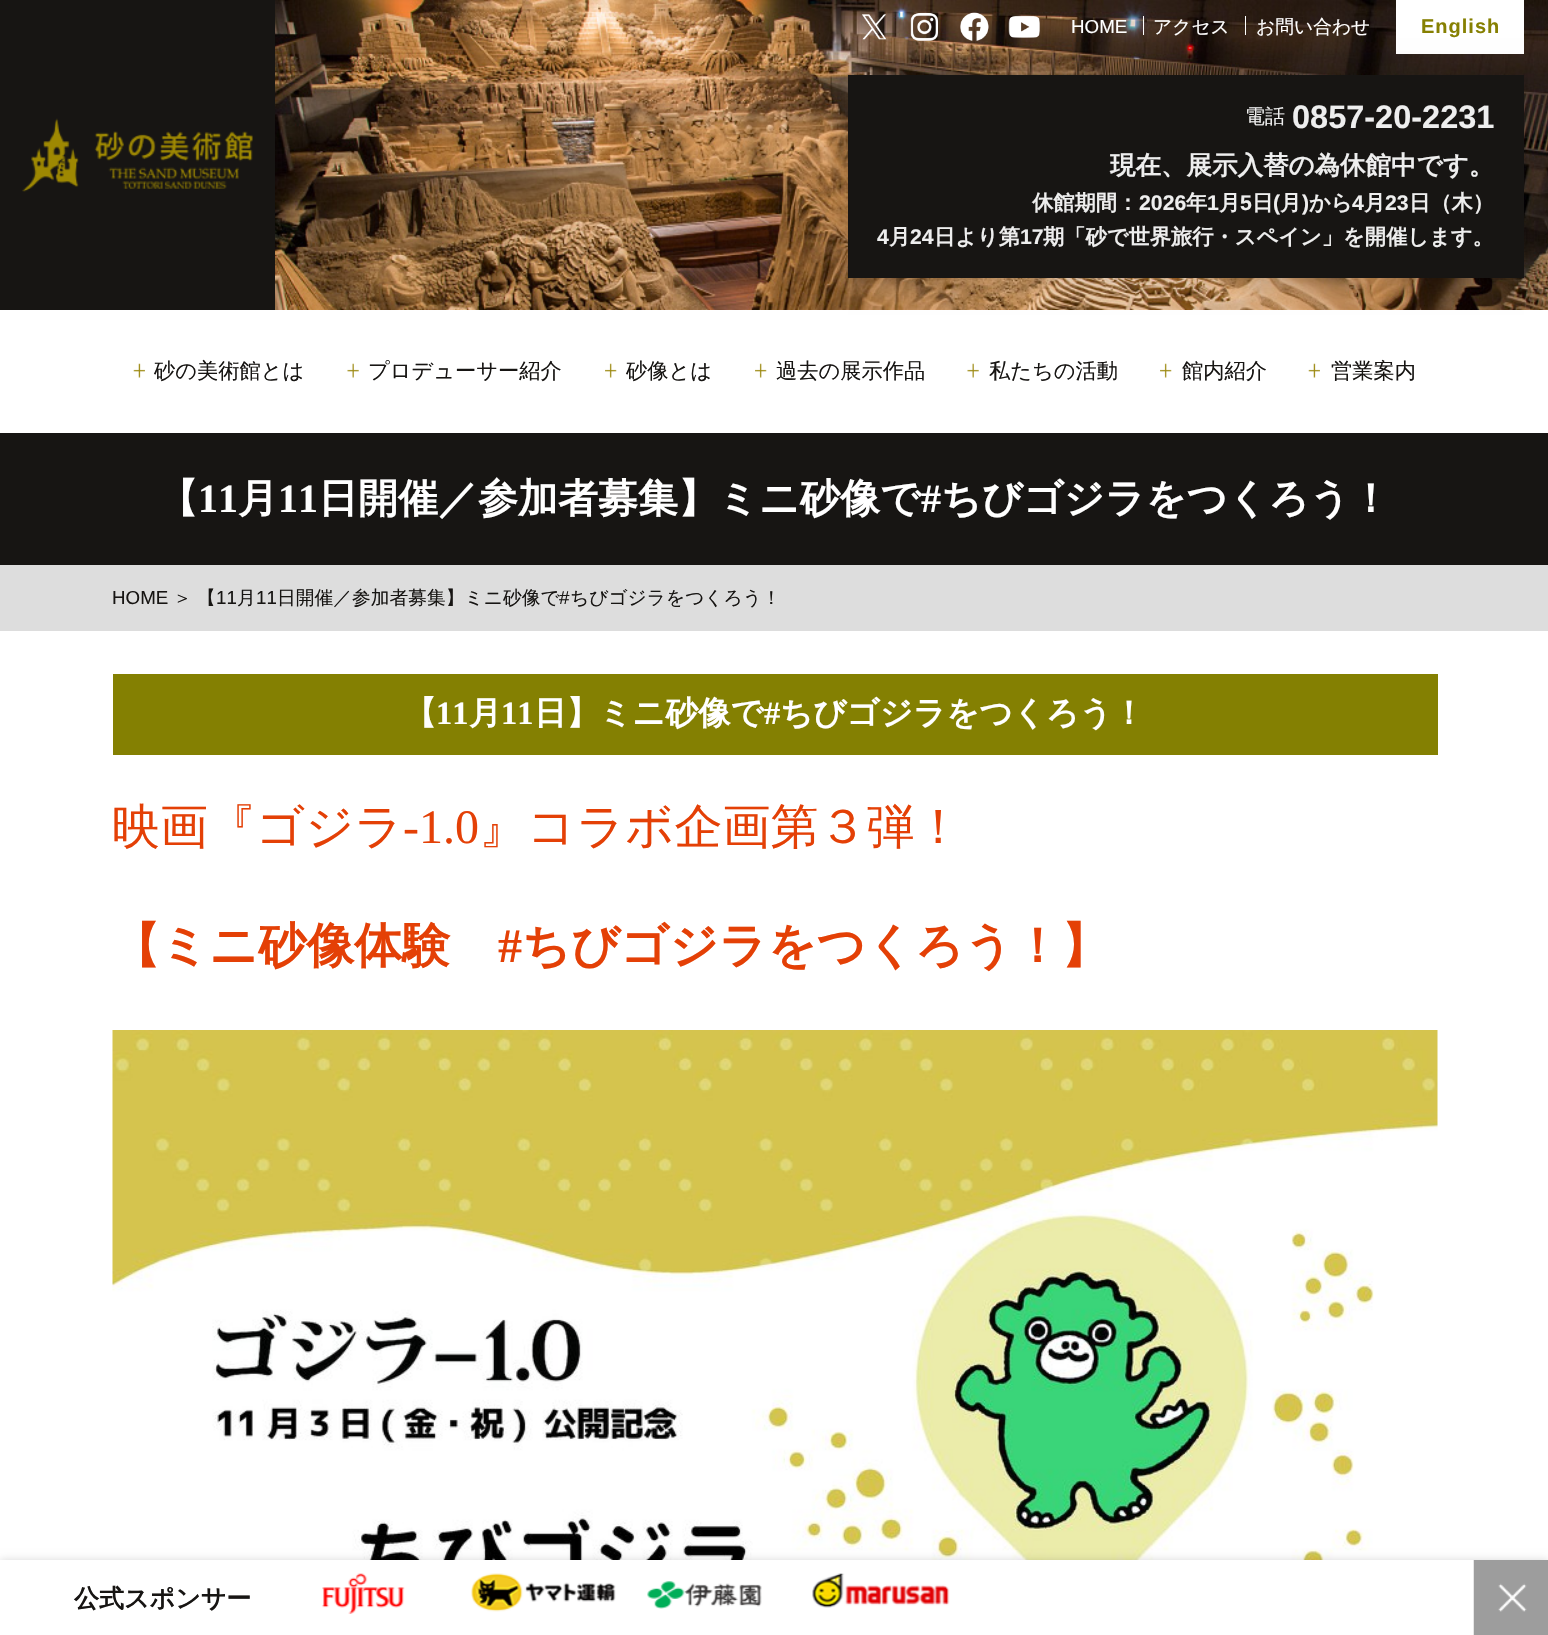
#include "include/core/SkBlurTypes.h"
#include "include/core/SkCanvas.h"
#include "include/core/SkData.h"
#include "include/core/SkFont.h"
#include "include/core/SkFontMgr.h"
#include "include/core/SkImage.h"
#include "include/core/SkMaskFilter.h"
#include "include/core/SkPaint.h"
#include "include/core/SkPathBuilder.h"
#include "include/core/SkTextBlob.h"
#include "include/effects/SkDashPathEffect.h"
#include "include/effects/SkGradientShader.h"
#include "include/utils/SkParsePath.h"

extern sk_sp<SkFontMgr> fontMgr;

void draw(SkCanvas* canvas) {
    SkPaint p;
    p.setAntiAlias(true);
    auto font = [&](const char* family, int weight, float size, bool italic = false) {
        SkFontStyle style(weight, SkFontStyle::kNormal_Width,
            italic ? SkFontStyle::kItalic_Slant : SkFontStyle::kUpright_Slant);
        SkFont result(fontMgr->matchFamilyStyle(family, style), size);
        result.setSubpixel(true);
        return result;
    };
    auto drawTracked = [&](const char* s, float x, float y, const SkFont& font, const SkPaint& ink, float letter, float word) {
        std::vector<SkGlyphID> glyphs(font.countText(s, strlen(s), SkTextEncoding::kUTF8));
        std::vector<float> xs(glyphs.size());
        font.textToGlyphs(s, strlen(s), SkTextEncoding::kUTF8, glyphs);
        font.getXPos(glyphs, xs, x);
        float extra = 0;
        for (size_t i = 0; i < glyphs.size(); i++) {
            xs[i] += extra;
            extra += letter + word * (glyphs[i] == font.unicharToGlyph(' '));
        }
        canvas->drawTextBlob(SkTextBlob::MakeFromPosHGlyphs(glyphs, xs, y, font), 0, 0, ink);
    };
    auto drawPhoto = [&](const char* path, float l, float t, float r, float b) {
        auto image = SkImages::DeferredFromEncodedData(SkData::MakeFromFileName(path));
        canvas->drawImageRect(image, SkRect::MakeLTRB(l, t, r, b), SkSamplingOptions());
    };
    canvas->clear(0xFFFFFFFF);
    p.setColor(0xFF171513);
    canvas->drawRect(SkRect::MakeLTRB(0, 0, 275, 310), p);
    drawPhoto("media/1.png", 22, 118, 253, 192);
    drawPhoto("media/2.png", 275, 0, 1548, 310);
    drawPhoto("media/3.png", 862, 14, 887, 40);
    drawPhoto("media/4.png", 910, 13, 938, 41);
    drawPhoto("media/5.png", 960, 12, 989, 41);
    drawPhoto("media/6.png", 1008, 15, 1040, 38);
    auto font1 = font("Liberation Sans", 400, 18.75f);
    p.setColor(0xFFFFFFFF);
    canvas->drawString("HOME", 1071, 33, font1, p);
    canvas->drawRect(SkRect::MakeLTRB(1143, 16, 1144, 35), p);
    auto font2 = font("WenQuanYi Zen Hei", 500, 18.75f);
    canvas->drawString("アクセス", 1153, 33, font2, p);
    canvas->drawRect(SkRect::MakeLTRB(1245, 16, 1246, 35), p);
    canvas->drawString("お問い合わせ", 1256, 33, font2, p);
    canvas->drawRect(SkRect::MakeLTRB(1396, 0, 1524, 54), p);
    auto font3 = font("Liberation Sans", 700, 20);
    p.setColor(0xFF868002);
    drawTracked("English", 1421, 33, font3, p, 1, 0);
    p.setColor(0x26000000);
    p.setMaskFilter(SkMaskFilter::MakeBlur(kNormal_SkBlurStyle, 12.5f));
    canvas->drawRect(SkRect::MakeLTRB(848, 75, 1524, 278), p);
    p.setMaskFilter(nullptr);
    p.setColor(0xFF171513);
    canvas->drawRect(SkRect::MakeLTRB(848, 75, 1524, 278), p);
    auto font4 = font("WenQuanYi Zen Hei", 500, 20);
    p.setColor(0xFFEEEEEE);
    canvas->drawString("電話", 1245, 123, font4, p);
    auto font5 = font("Liberation Sans", 700, 32.5f);
    canvas->drawString("0857-20-2231", 1292, 128, font5, p);
    auto font6 = font("WenQuanYi Zen Hei", 700, 25.5f);
    canvas->drawString("現在、展示入替の為休館中です。", 1110, 174, font6, p);
    auto font7 = font("WenQuanYi Zen Hei", 700, 21.25f);
    canvas->drawString("休館期間：", 1032, 210, font7, p);
    auto font8 = font("Liberation Sans", 700, 21.25f);
    canvas->drawString("2026", 1139, 210, font8, p);
    canvas->drawString("年", 1186, 210, font7, p);
    canvas->drawString("1", 1207, 210, font8, p);
    canvas->drawString("月", 1219, 210, font7, p);
    canvas->drawString("5", 1240, 210, font8, p);
    canvas->drawString("日", 1252, 210, font7, p);
    canvas->drawString("(", 1273, 210, font8, p);
    canvas->drawString("月", 1280, 210, font7, p);
    canvas->drawString(")", 1302, 210, font8, p);
    canvas->drawString("から", 1309, 210, font7, p);
    canvas->drawString("4", 1352, 210, font8, p);
    canvas->drawString("月", 1364, 210, font7, p);
    canvas->drawString("23", 1385, 210, font8, p);
    canvas->drawString("日（木）", 1409, 210, font7, p);
    canvas->drawString("4", 877, 244, font8, p);
    canvas->drawString("月", 889, 244, font7, p);
    canvas->drawString("24", 910, 244, font8, p);
    canvas->drawString("日より第", 934, 244, font7, p);
    canvas->drawString("17", 1020, 244, font8, p);
    canvas->drawString("期「砂で世界旅行・スペイン」を開催します。", 1043, 244, font7, p);
    drawPhoto("media/7.png", 133, 363, 145, 378);
    auto font9 = font("WenQuanYi Zen Hei", 500, 21.25f);
    p.setColor(0xFF171513);
    canvas->drawString("砂の美術館とは", 154, 378, font9, p);
    drawPhoto("media/8.png", 347, 363, 359, 378);
    canvas->drawString("プロデューサー紹介", 368, 378, font9, p);
    drawPhoto("media/9.png", 605, 363, 617, 378);
    canvas->drawString("砂像とは", 626, 378, font9, p);
    drawPhoto("media/9.png", 755, 363, 767, 378);
    canvas->drawString("過去の展示作品", 776, 378, font9, p);
    drawPhoto("media/8.png", 967, 363, 979, 378);
    canvas->drawString("私たちの活動", 989, 378, font9, p);
    drawPhoto("media/9.png", 1160, 363, 1172, 378);
    canvas->drawString("館内紹介", 1182, 378, font9, p);
    drawPhoto("media/7.png", 1308, 363, 1320, 378);
    canvas->drawString("営業案内", 1331, 378, font9, p);
    canvas->drawRect(SkRect::MakeLTRB(0, 433, 1548, 565), p);
    auto font10 = font("WenQuanYi Zen Hei", 700, 40);
    p.setColor(0xFFFFFFFF);
    canvas->drawString("【", 158, 512, font10, p);
    auto font11 = font("Liberation Serif", 700, 40);
    canvas->drawString("11", 198, 512, font11, p);
    canvas->drawString("月", 238, 512, font10, p);
    canvas->drawString("11", 278, 512, font11, p);
    canvas->drawString("日開催／参加者募集】ミニ砂像で", 318, 512, font10, p);
    canvas->drawString("#", 921, 512, font11, p);
    canvas->drawString("ちびゴジラをつくろう！", 941, 512, font10, p);
    p.setColor(0xFFDDDDDD);
    canvas->drawRect(SkRect::MakeLTRB(0, 565, 1548, 631), p);
    p.setColor(0xFF171513);
    canvas->drawString("HOME", 112, 604, font1, p);
    canvas->drawString("＞", 173, 604, font2, p);
    canvas->drawString("【", 197, 604, font2, p);
    canvas->drawString("11", 216, 604, font1, p);
    canvas->drawString("月", 237, 604, font2, p);
    canvas->drawString("11", 256, 604, font1, p);
    canvas->drawString("日開催／参加者募集】ミニ砂像で", 277, 604, font2, p);
    canvas->drawString("#", 559, 604, font1, p);
    canvas->drawString("ちびゴジラをつくろう！", 570, 604, font2, p);
    p.setColor(0xFF848002);
    canvas->drawRect(SkRect::MakeLTRB(113, 674, 1438, 755), p);
    auto font12 = font("WenQuanYi Zen Hei", 700, 32.5f);
    p.setColor(0xFFFFFFFF);
    canvas->drawString("【", 404, 724, font12, p);
    auto font13 = font("Liberation Serif", 700, 32.5f);
    canvas->drawString("11", 436, 724, font13, p);
    canvas->drawString("月", 469, 724, font12, p);
    canvas->drawString("11", 501, 724, font13, p);
    canvas->drawString("日】ミニ砂像で", 534, 724, font12, p);
    canvas->drawString("#", 764, 724, font13, p);
    canvas->drawString("ちびゴジラをつくろう！", 780, 724, font12, p);
    auto font14 = font("WenQuanYi Zen Hei", 500, 48);
    p.setColor(0xFFE44006);
    canvas->drawString("映画『ゴジラ", 112, 843, font14, p);
    auto font15 = font("Liberation Serif", 400, 48);
    canvas->drawString("-1.0", 403, 843, font15, p);
    canvas->drawString("』コラボ企画第３弾！", 479, 843, font14, p);
    auto font16 = font("WenQuanYi Zen Hei", 700, 48);
    canvas->drawString("【ミニ砂像体験", 112, 962, font16, p);
    auto font17 = font("Liberation Serif", 700, 48);
    canvas->drawString("#", 498, 962, font17, p);
    canvas->drawString("ちびゴジラをつくろう！】", 522, 962, font16, p);
    drawPhoto("media/10.png", 112, 1030, 1438, 1560);
    p.setColor(0x26000000);
    p.setMaskFilter(SkMaskFilter::MakeBlur(kNormal_SkBlurStyle, 4));
    canvas->drawRect(SkRect::MakeLTRB(0, 1560, 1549, 1635), p);
    p.setMaskFilter(nullptr);
    p.setColor(0xFFFFFFFF);
    canvas->drawRect(SkRect::MakeLTRB(0, 1560, 1474, 1635), p);
    auto font18 = font("WenQuanYi Zen Hei", 700, 25);
    p.setColor(0xFF171513);
    canvas->drawString("公式スポンサー", 74, 1607, font18, p);
    drawPhoto("media/11.png", 322, 1573, 405, 1614);
    drawPhoto("media/12.png", 471, 1573, 616, 1612);
    drawPhoto("media/13.png", 647, 1581, 762, 1609);
    drawPhoto("media/14.png", 812, 1573, 950, 1608);
    drawPhoto("media/15.png", 1473, 1560, 1548, 1635);
}
